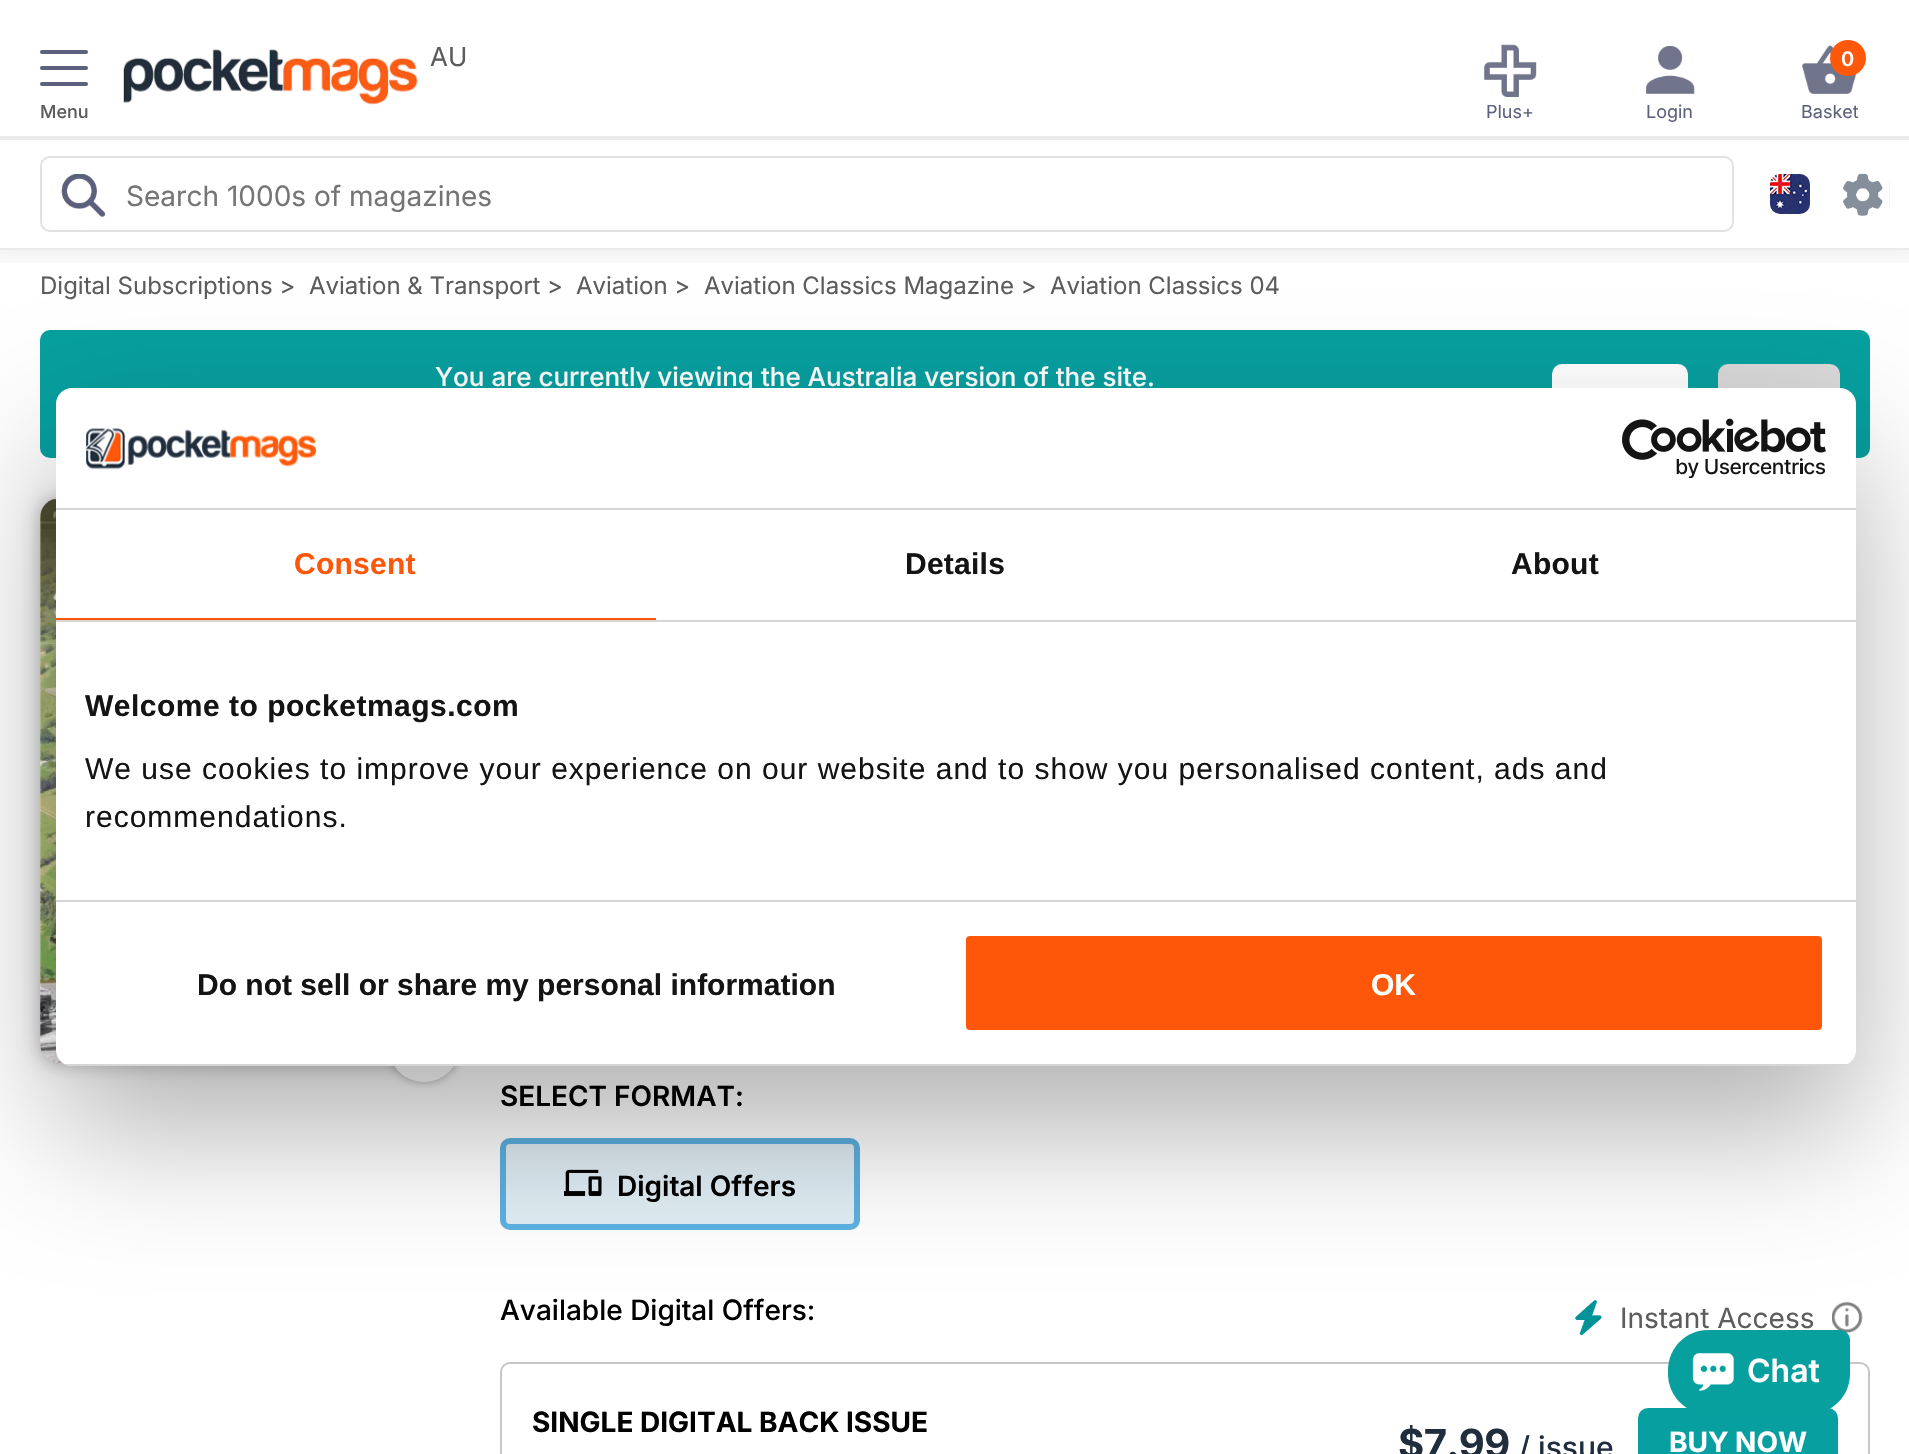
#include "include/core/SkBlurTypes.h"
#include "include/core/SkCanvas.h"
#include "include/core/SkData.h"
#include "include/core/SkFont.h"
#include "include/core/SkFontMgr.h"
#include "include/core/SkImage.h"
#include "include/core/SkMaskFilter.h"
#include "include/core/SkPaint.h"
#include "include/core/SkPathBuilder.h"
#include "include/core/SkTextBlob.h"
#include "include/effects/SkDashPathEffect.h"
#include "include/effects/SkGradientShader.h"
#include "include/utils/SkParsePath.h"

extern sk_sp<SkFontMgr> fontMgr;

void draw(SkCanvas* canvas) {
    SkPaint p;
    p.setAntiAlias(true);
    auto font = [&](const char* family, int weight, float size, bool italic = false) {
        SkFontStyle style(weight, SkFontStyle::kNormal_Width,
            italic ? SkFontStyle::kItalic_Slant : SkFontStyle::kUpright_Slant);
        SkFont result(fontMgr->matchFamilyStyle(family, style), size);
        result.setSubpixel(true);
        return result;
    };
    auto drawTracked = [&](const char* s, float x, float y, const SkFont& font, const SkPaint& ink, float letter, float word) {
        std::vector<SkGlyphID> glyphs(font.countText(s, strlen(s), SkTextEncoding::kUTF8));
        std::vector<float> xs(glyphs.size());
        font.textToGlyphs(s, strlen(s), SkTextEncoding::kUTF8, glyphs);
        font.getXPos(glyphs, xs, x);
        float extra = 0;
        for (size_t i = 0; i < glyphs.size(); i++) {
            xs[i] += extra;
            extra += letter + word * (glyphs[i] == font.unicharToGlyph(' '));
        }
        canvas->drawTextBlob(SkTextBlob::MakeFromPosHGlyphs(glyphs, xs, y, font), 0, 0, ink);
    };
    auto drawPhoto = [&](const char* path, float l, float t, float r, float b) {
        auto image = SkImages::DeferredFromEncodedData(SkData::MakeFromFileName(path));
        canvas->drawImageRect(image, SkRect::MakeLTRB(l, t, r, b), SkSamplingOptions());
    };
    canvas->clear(0xFFFFFFFF);
    canvas->save();
    canvas->clipRect(SkRect::MakeLTRB(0, 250, 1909, 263));
    p.setColor(0x0D000000);
    p.setMaskFilter(SkMaskFilter::MakeBlur(kNormal_SkBlurStyle, 10));
    canvas->drawRect(SkRect::MakeLTRB(-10, -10, 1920, 260), p);
    p.setMaskFilter(nullptr);
    canvas->restore();
    p.setColor(0xFFEAEAEA);
    canvas->drawRect(SkRect::MakeLTRB(0, 136, 1909, 140), p);
    p.setColor(0xFF5C607C);
    canvas->drawRoundRect(SkRect::MakeLTRB(40, 50, 88, 54), 2, 2, p);
    canvas->drawRoundRect(SkRect::MakeLTRB(40, 66, 88, 70), 2, 2, p);
    canvas->drawRoundRect(SkRect::MakeLTRB(40, 82, 88, 86), 2, 2, p);
    auto font1 = font("Inter", 500, 18);
    p.setColor(0xFF5C5C5C);
    canvas->drawString("Menu", 40, 118, font1, p);
    drawPhoto("media/1.png", 123, 49, 418, 105);
    auto font2 = font("Inter", 400, 26);
    canvas->drawString("AU", 430, 66, font2, p);
    drawPhoto("media/2.png", 1483, 44, 1537, 97);
    auto font3 = font("Inter", 400, 18);
    p.setColor(0xFF5C607C);
    canvas->drawString("Plus+", 1486, 118, font3, p);
    drawPhoto("media/3.png", 1646, 46, 1695, 94);
    canvas->drawString("Login", 1646, 118, font3, p);
    drawPhoto("media/4.png", 1802, 45, 1857, 94);
    p.setColor(0xFFFF580A);
    canvas->drawCircle(1848, 58, 18, p);
    auto font4 = font("Inter", 600, 20);
    p.setColor(0xFFFFFFFF);
    canvas->drawString("0", 1841, 66, font4, p);
    p.setColor(0xFF5C607C);
    canvas->drawString("Basket", 1801, 118, font3, p);
    p.setColor(0xFFEAEAEA);
    canvas->drawRect(SkRect::MakeLTRB(0, 248, 1909, 250), p);
    p.setStyle(SkPaint::kStroke_Style);
    p.setStrokeWidth(2);
    p.setColor(0xFFE1E1E1);
    canvas->drawRoundRect(SkRect::MakeLTRB(41, 157, 1733, 231), 9, 9, p);
    drawPhoto("media/5.png", 61, 174, 106, 226);
    auto font5 = font("Inter", 400, 28);
    p.setStyle(SkPaint::kFill_Style);
    p.setColor(0xFF757575);
    canvas->drawString("Search 1000s of magazines", 126, 206, font5, p);
    drawPhoto("media/6.png", 1770, 174, 1810, 214);
    drawPhoto("media/7.png", 1843, 173, 1890, 216);
    auto font6 = font("Inter", 400, 24);
    p.setColor(0xFF5C5C5C);
    {
        const struct { const char* s; float x, y; } items[] = {
            {"Digital Subscriptions >", 40, 294},
            {"Aviation & Transport >", 309, 294},
            {"Aviation >", 576, 294},
            {"Aviation Classics Magazine >", 704, 294},
            {"Aviation Classics 04", 1050, 294},
        };
        for (auto [s, x, y] : items) {
            canvas->drawString(s, x, y, font6, p);
        }
    }
    p.setColor(0xFF079F9F);
    canvas->drawRoundRect(SkRect::MakeLTRB(40, 330, 1870, 458), 10, 10, p);
    auto font7 = font("Inter", 500, 26);
    p.setColor(0xFFFFFFFF);
    canvas->drawString("You are currently viewing the Australia version of the site.", 435, 386, font7, p);
    canvas->drawRoundRect(SkRect::MakeLTRB(1552, 364, 1688, 424), 10, 10, p);
    p.setColor(0xFFD9D9D9);
    canvas->drawRoundRect(SkRect::MakeLTRB(1718, 364, 1840, 424), 10, 10, p);
    p.setColor(0x4D000000);
    p.setMaskFilter(SkMaskFilter::MakeBlur(kNormal_SkBlurStyle, 10));
    canvas->drawRoundRect(SkRect::MakeLTRB(40, 498, 440, 1064), 20, 20, p);
    p.setMaskFilter(nullptr);
    drawPhoto("media/8.png", 40, 498, 65, 1064);
    p.setMaskFilter(SkMaskFilter::MakeBlur(kNormal_SkBlurStyle, 5));
    canvas->drawRoundRect(SkRect::MakeLTRB(388, 1010, 460, 1082), 36, 36, p);
    p.setMaskFilter(nullptr);
    p.setColor(0xFFFFFFFF);
    canvas->drawCircle(424, 1046, 36, p);
    auto font8 = font("Inter", 600, 28);
    p.setColor(0xFF000000);
    canvas->drawString("SELECT FORMAT:", 500, 1106, font8, p);
    p.setColor(0xFFE1EEF5);
    canvas->drawRoundRect(SkRect::MakeLTRB(503, 1141, 857, 1227), 7, 7, p);
    p.setStyle(SkPaint::kStroke_Style);
    p.setStrokeWidth(6);
    p.setColor(0xFF5DB1E0);
    canvas->drawRoundRect(SkRect::MakeLTRB(503, 1141, 857, 1227), 7, 7, p);
    drawPhoto("media/9.png", 564, 1169, 602, 1197);
    p.setStyle(SkPaint::kFill_Style);
    p.setColor(0xFF000000);
    canvas->drawString("Digital Offers", 617, 1196, font8, p);
    auto font9 = font("Inter", 500, 28);
    canvas->drawString("Available Digital Offers:", 500, 1320, font9, p);
    drawPhoto("media/10.png", 1575, 1300, 1602, 1335);
    p.setColor(0xFF5C5C5C);
    canvas->drawString("Instant Access", 1620, 1328, font5, p);
    drawPhoto("media/11.png", 1832, 1301, 1863, 1334);
    p.setStyle(SkPaint::kStroke_Style);
    p.setStrokeWidth(2);
    p.setColor(0xFFC6C6C6);
    canvas->drawRoundRect(SkRect::MakeLTRB(501, 1363, 1869, 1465), 9, 9, p);
    auto font10 = font("Inter", 700, 28);
    p.setStyle(SkPaint::kFill_Style);
    p.setColor(0xFF000000);
    canvas->drawString("SINGLE DIGITAL BACK ISSUE", 532, 1432, font10, p);
    auto font11 = font("Inter", 700, 40);
    p.setColor(0xFF202D3C);
    canvas->drawString("$", 1398, 1458, font11, p);
    auto font12 = font("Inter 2", 700, 40);
    canvas->drawString("7.99", 1424, 1458, font12, p);
    auto font13 = font("Inter", 500, 30);
    canvas->drawString("/ issue", 1519, 1458, font13, p);
    p.setColor(0xFF079F9F);
    canvas->drawRoundRect(SkRect::MakeLTRB(1638, 1408, 1838, 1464), 10, 10, p);
    p.setColor(0xFFFFFFFF);
    canvas->drawString("BUY NOW", 1669, 1452, font10, p);
    p.setColor(0xFF07A09E);
    canvas->drawPath(SkPathBuilder().moveTo(1708, 1330).lineTo(1840, 1330).cubicTo(1845.5f, 1330, 1850, 1334.5f, 1850, 1340).lineTo(1850, 1374).cubicTo(1850, 1396, 1832, 1414, 1810, 1414).lineTo(1708, 1414).cubicTo(1686, 1414, 1668, 1396, 1668, 1374).lineTo(1668, 1370).cubicTo(1668, 1348, 1686, 1330, 1708, 1330).close().detach(), p);
    drawPhoto("media/12.png", 1692, 1353, 1734, 1391);
    auto font14 = font("Inter", 600, 32);
    p.setColor(0xFFFFFFFF);
    canvas->drawString("Chat", 1747, 1382, font14, p);
    p.setColor(0x4D000000);
    p.setMaskFilter(SkMaskFilter::MakeBlur(kNormal_SkBlurStyle, 68));
    canvas->drawRoundRect(SkRect::MakeLTRB(56, 452, 1856, 1130), 16, 16, p);
    p.setMaskFilter(nullptr);
    p.setColor(0xFFFFFFFF);
    canvas->drawRoundRect(SkRect::MakeLTRB(56, 388, 1856, 1066), 16, 16, p);
    p.setColor(0xFFD6D6D6);
    canvas->drawRect(SkRect::MakeLTRB(56, 508, 1856, 510), p);
    drawPhoto("media/13.png", 86, 428, 316, 470);
    drawPhoto("media/14.png", 1622, 418, 1826, 478);
    canvas->drawRect(SkRect::MakeLTRB(56, 620, 1856, 622), p);
    p.setColor(0xFFFF5709);
    canvas->drawRect(SkRect::MakeLTRB(56, 618, 656, 620), p);
    auto font15 = font("Liberation Sans", 700, 30);
    drawTracked("Consent", 294, 574, font15, p, 0.25f, 0);
    p.setColor(0xFF141414);
    drawTracked("Details", 905, 574, font15, p, 0.25f, 0);
    drawTracked("About", 1511, 574, font15, p, 0.25f, 0);
    p.setColor(0xFFD6D6D6);
    canvas->drawRect(SkRect::MakeLTRB(56, 900, 1856, 902), p);
    p.setColor(0xFF141414);
    drawTracked("Welcome to pocketmags.com", 85, 716, font15, p, 0.5f, 0);
    auto font16 = font("Liberation Sans", 400, 30);
    drawTracked("We use cookies to improve your experience on our website and to show you personalised content, ads and", 85, 779, font16, p, 1, 0);
    drawTracked("recommendations.", 85, 827, font16, p, 1, 0);
    canvas->save();
    canvas->clipPath(SkPathBuilder().moveTo(72, 388).lineTo(1840, 388).cubicTo(1849, 388, 1856, 395, 1856, 404).lineTo(1856, 1050).cubicTo(1856, 1059, 1849, 1066, 1840, 1066).lineTo(72, 1066).cubicTo(63, 1066, 56, 1059, 56, 1050).lineTo(56, 404).cubicTo(56, 395, 63, 388, 72, 388).close().detach(), true);
    p.setColor(0xFFD6D6D6);
    canvas->drawRect(SkRect::MakeLTRB(56, 1064, 1856, 1066), p);
    canvas->restore();
    p.setColor(0xFF141414);
    canvas->drawString("Do not sell or share my personal information", 197, 995, font15, p);
    p.setColor(0xFFFF5709);
    canvas->drawRoundRect(SkRect::MakeLTRB(964, 934, 1824, 1032), 6, 6, p);
    p.setStyle(SkPaint::kStroke_Style);
    p.setStrokeWidth(4);
    p.setColor(0xFFFFFFFF);
    canvas->drawRoundRect(SkRect::MakeLTRB(964, 934, 1824, 1032), 6, 6, p);
    p.setStyle(SkPaint::kFill_Style);
    canvas->drawString("OK", 1371, 995, font15, p);
}
